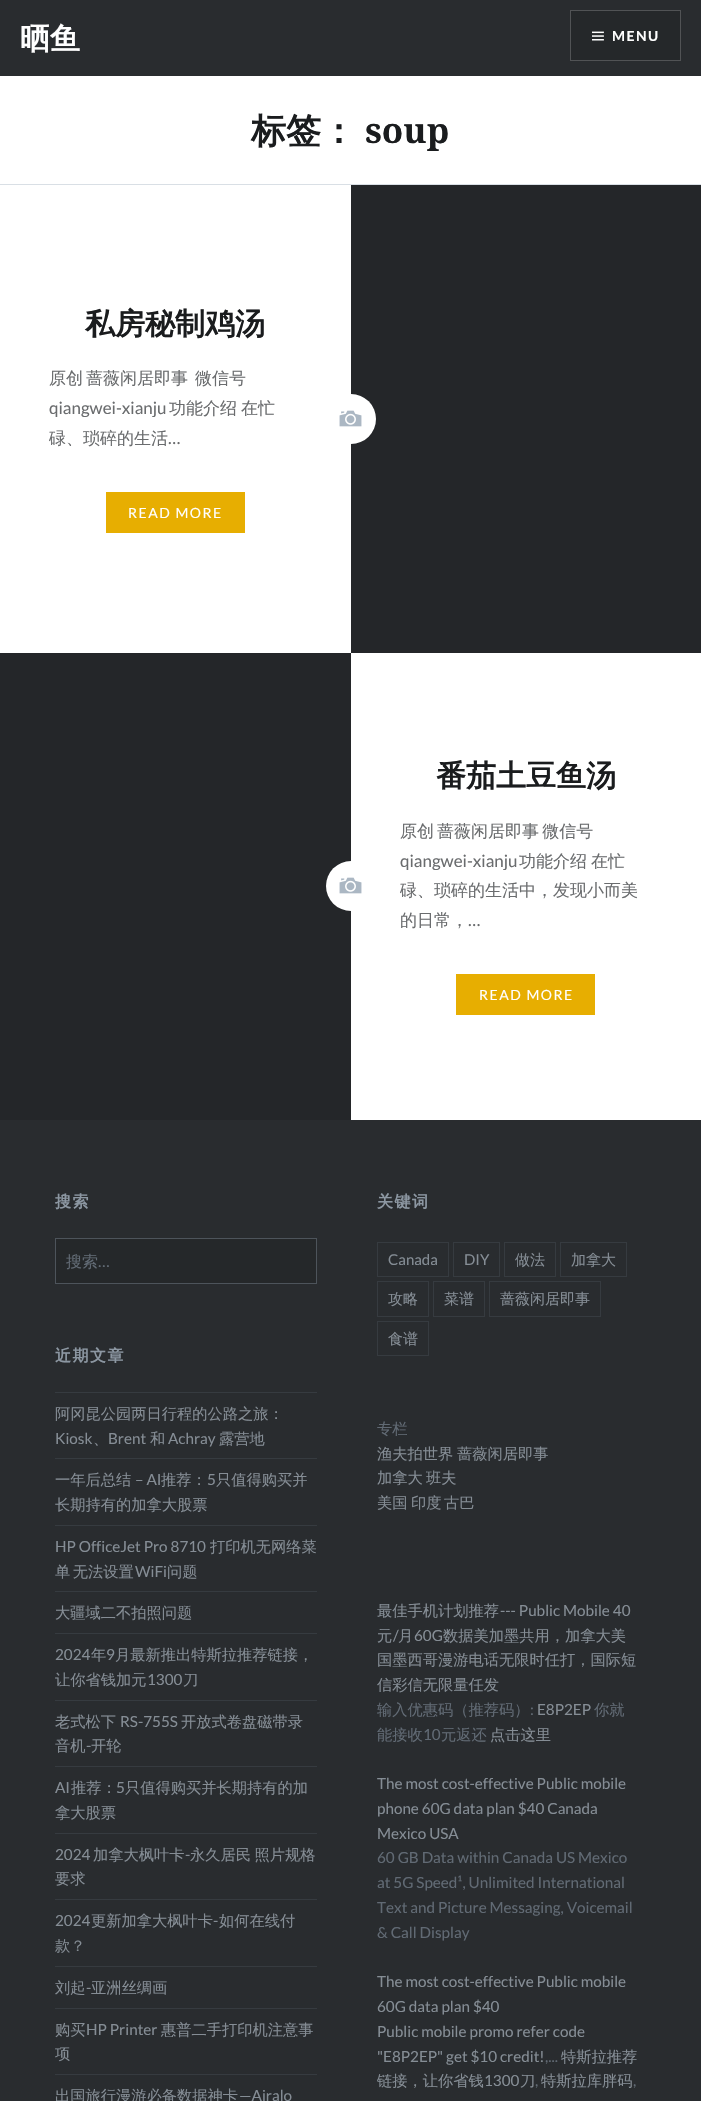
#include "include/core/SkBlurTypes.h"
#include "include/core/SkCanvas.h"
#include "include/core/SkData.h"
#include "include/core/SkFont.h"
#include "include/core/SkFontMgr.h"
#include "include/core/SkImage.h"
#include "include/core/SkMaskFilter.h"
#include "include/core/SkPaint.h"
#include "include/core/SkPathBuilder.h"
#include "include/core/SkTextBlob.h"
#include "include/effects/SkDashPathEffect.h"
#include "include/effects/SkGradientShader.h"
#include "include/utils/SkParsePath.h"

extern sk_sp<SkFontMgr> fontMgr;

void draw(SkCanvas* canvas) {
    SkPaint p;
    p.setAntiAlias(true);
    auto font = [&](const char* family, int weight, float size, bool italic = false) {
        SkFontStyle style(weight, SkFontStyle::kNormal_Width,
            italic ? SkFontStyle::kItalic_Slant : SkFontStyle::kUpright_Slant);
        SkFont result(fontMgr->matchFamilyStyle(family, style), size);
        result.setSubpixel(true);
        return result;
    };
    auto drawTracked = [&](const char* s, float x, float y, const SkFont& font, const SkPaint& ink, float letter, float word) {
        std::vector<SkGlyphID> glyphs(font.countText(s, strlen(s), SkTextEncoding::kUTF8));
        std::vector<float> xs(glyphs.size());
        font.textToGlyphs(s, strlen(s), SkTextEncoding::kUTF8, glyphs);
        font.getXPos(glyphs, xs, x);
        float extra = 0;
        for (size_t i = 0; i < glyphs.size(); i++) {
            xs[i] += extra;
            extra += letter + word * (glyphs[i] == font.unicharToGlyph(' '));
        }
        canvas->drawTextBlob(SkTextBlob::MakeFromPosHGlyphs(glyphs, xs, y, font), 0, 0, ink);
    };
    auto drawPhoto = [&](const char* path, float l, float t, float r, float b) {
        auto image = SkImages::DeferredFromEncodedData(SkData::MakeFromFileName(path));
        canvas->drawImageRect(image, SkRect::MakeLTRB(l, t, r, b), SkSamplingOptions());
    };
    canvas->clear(0xFFFFFFFF);
    p.setColor(0xFF292C2F);
    canvas->drawRect(SkRect::MakeLTRB(0, 0, 701, 76), p);
    auto font1 = font("WenQuanYi Zen Hei", 700, 30);
    p.setColor(0xFFFFFFFF);
    canvas->drawString("晒鱼", 20, 49, font1, p);
    p.setColor(0xFF25282A);
    canvas->drawRect(SkRect::MakeLTRB(570.5f, 10.5f, 680.5f, 60.5f), p);
    p.setStyle(SkPaint::kStroke_Style);
    p.setStrokeWidth(1);
    p.setColor(0xFF515355);
    canvas->drawRect(SkRect::MakeLTRB(570.5f, 10.5f, 680.5f, 60.5f), p);
    drawPhoto("media/1.png", 592, 31, 604, 41);
    auto font2 = font("Lato", 700, 14);
    p.setStyle(SkPaint::kFill_Style);
    p.setColor(0xFFFFFFFF);
    drawTracked("MENU", 612, 41, font2, p, 1.5f, 0);
    p.setColor(0xFFD9DFE5);
    canvas->drawRect(SkRect::MakeLTRB(0, 184, 701, 185), p);
    auto font3 = font("WenQuanYi Zen Hei", 700, 35);
    p.setColor(0xFF1A1C1E);
    canvas->drawString("标签：", 251, 143, font3, p);
    auto font4 = font("Noto Serif", 700, 35);
    canvas->drawString("soup", 365, 143, font4, p);
    canvas->drawString("私房秘制鸡汤", 85, 334, font1, p);
    auto font5 = font("WenQuanYi Zen Hei", 500, 17);
    p.setColor(0xFF6A6C6E);
    {
        const struct { const char* s; float x, y; } items[] = {
            {"原创", 49, 384},
            {"蔷薇闲居即事", 86, 384},
            {"微信号", 195, 384},
        };
        for (auto [s, x, y] : items) {
            canvas->drawString(s, x, y, font5, p);
        }
    }
    auto font6 = font("Lato", 400, 17);
    canvas->drawString("qiangwei-xianju", 49, 414, font6, p);
    drawTracked("功能介绍 在忙", 169, 414, font5, p, 0, -1);
    canvas->drawString("碌、琐碎的生活", 49, 444, font5, p);
    canvas->drawString("…", 168, 444, font6, p);
    p.setColor(0xFFE7AE01);
    canvas->drawRect(SkRect::MakeLTRB(106, 492, 245, 533), p);
    auto font7 = font("Lato", 400, 14);
    p.setColor(0xFFFFFFFF);
    drawTracked("READ MORE", 128, 518, font7, p, 1.5f, 0);
    p.setColor(0xFF242629);
    canvas->drawRect(SkRect::MakeLTRB(351, 185, 701, 653), p);
    p.setColor(0xFFFFFFFF);
    canvas->drawCircle(351, 419, 25, p);
    drawPhoto("media/2.png", 339, 410, 362, 427);
    p.setColor(0xFF242629);
    canvas->drawRect(SkRect::MakeLTRB(0, 653, 351, 1120), p);
    p.setColor(0xFFFFFFFF);
    canvas->drawCircle(351, 886, 25, p);
    p.setColor(0xFF1A1C1E);
    canvas->drawString("番茄土豆鱼汤", 436, 786, font1, p);
    p.setColor(0xFF6A6C6E);
    drawTracked("原创 蔷薇闲居即事 微信号", 400, 837, font5, p, 0, -2);
    canvas->drawString("qiangwei-xianju", 400, 867, font6, p);
    drawTracked("功能介绍 在忙", 519, 867, font5, p, 0, -1);
    canvas->drawString("碌、琐碎的生活中，发现小而美", 400, 896, font5, p);
    canvas->drawString("的日常，", 400, 926, font5, p);
    canvas->drawString("…", 468, 926, font6, p);
    p.setColor(0xFFE7AE01);
    canvas->drawRect(SkRect::MakeLTRB(456, 974, 595, 1015), p);
    p.setColor(0xFFFFFFFF);
    drawTracked("READ MORE", 479, 1000, font7, p, 1.5f, 0);
    drawPhoto("media/2.png", 339, 877, 362, 894);
    p.setColor(0xFF292C2F);
    canvas->drawRect(SkRect::MakeLTRB(0, 1120, 701, 2101), p);
    auto font8 = font("WenQuanYi Zen Hei", 700, 16);
    p.setColor(0xFF8C97A2);
    drawTracked("搜索", 55, 1207, font8, p, 1.5f, 0);
    p.setColor(0xFF25282A);
    canvas->drawRect(SkRect::MakeLTRB(55.5f, 1238.5f, 316.5f, 1283.5f), p);
    p.setStyle(SkPaint::kStroke_Style);
    p.setColor(0xFF4D545B);
    canvas->drawRect(SkRect::MakeLTRB(55.5f, 1238.5f, 316.5f, 1283.5f), p);
    auto font9 = font("WenQuanYi Zen Hei", 500, 16);
    p.setStyle(SkPaint::kFill_Style);
    p.setColor(0xFF616A74);
    canvas->drawString("搜索", 66, 1267, font9, p);
    auto font10 = font("Lato", 400, 16);
    canvas->drawString("…", 98, 1267, font10, p);
    p.setColor(0xFF8C97A2);
    drawTracked("关键词", 377, 1207, font8, p, 1.5f, 0);
    p.setStyle(SkPaint::kStroke_Style);
    p.setColor(0xFF363B40);
    canvas->drawRect(SkRect::MakeLTRB(377.5f, 1242.5f, 448.5f, 1276.5f), p);
    auto font11 = font("Lato", 400, 15);
    p.setStyle(SkPaint::kFill_Style);
    p.setColor(0xFF858D95);
    canvas->drawString("Canada", 388, 1265, font11, p);
    p.setStyle(SkPaint::kStroke_Style);
    p.setColor(0xFF363B40);
    canvas->drawRect(SkRect::MakeLTRB(453.5f, 1242.5f, 499.5f, 1276.5f), p);
    p.setStyle(SkPaint::kFill_Style);
    p.setColor(0xFF858D95);
    canvas->drawString("DIY", 464, 1265, font11, p);
    p.setStyle(SkPaint::kStroke_Style);
    p.setColor(0xFF363B40);
    canvas->drawRect(SkRect::MakeLTRB(504.5f, 1242.5f, 555.5f, 1276.5f), p);
    auto font12 = font("WenQuanYi Zen Hei", 500, 15);
    p.setStyle(SkPaint::kFill_Style);
    p.setColor(0xFF858D95);
    canvas->drawString("做法", 515, 1265, font12, p);
    p.setStyle(SkPaint::kStroke_Style);
    p.setColor(0xFF363B40);
    canvas->drawRect(SkRect::MakeLTRB(560.5f, 1242.5f, 626.5f, 1276.5f), p);
    p.setStyle(SkPaint::kFill_Style);
    p.setColor(0xFF858D95);
    canvas->drawString("加拿大", 571, 1265, font12, p);
    p.setStyle(SkPaint::kStroke_Style);
    p.setColor(0xFF363B40);
    canvas->drawRect(SkRect::MakeLTRB(377.5f, 1281.5f, 428.5f, 1316.5f), p);
    p.setStyle(SkPaint::kFill_Style);
    p.setColor(0xFF858D95);
    canvas->drawString("攻略", 388, 1304, font12, p);
    p.setStyle(SkPaint::kStroke_Style);
    p.setColor(0xFF363B40);
    canvas->drawRect(SkRect::MakeLTRB(433.5f, 1281.5f, 484.5f, 1316.5f), p);
    p.setStyle(SkPaint::kFill_Style);
    p.setColor(0xFF858D95);
    canvas->drawString("菜谱", 444, 1304, font12, p);
    p.setStyle(SkPaint::kStroke_Style);
    p.setColor(0xFF363B40);
    canvas->drawRect(SkRect::MakeLTRB(489.5f, 1281.5f, 600.5f, 1316.5f), p);
    p.setStyle(SkPaint::kFill_Style);
    p.setColor(0xFF858D95);
    canvas->drawString("蔷薇闲居即事", 500, 1304, font12, p);
    p.setStyle(SkPaint::kStroke_Style);
    p.setColor(0xFF363B40);
    canvas->drawRect(SkRect::MakeLTRB(377.5f, 1321.5f, 428.5f, 1355.5f), p);
    p.setStyle(SkPaint::kFill_Style);
    p.setColor(0xFF858D95);
    canvas->drawString("食谱", 388, 1344, font12, p);
    p.setColor(0xFF8C97A2);
    drawTracked("近期文章", 55, 1361, font8, p, 1.5f, 0);
    p.setColor(0xFF363B40);
    canvas->drawRect(SkRect::MakeLTRB(55, 1392, 317, 1393), p);
    canvas->drawRect(SkRect::MakeLTRB(55, 1458, 317, 1459), p);
    auto font13 = font("WenQuanYi Zen Hei", 500, 15.25f);
    p.setColor(0xFF858D95);
    canvas->drawString("阿冈昆公园两日行程的公路之旅：", 55, 1419, font13, p);
    auto font14 = font("Lato", 400, 15.25f);
    canvas->drawString("Kiosk", 55, 1444, font14, p);
    canvas->drawString("、", 93, 1444, font13, p);
    canvas->drawString("Brent", 108, 1444, font14, p);
    canvas->drawString("和", 150, 1444, font13, p);
    canvas->drawString("Achray", 168, 1444, font14, p);
    canvas->drawString("露营地", 219, 1444, font13, p);
    p.setColor(0xFF363B40);
    canvas->drawRect(SkRect::MakeLTRB(55, 1525, 317, 1526), p);
    p.setColor(0xFF858D95);
    canvas->drawString("一年后总结", 55, 1485, font13, p);
    canvas->drawString("– AI", 135, 1485, font14, p);
    canvas->drawString("推荐：", 161, 1485, font13, p);
    canvas->drawString("5", 207, 1485, font14, p);
    canvas->drawString("只值得购买并", 216, 1485, font13, p);
    canvas->drawString("长期持有的加拿大股票", 55, 1510, font13, p);
    p.setColor(0xFF363B40);
    canvas->drawRect(SkRect::MakeLTRB(55, 1591, 317, 1592), p);
    p.setColor(0xFF858D95);
    canvas->drawString("HP OfficeJet Pro 8710", 55, 1552, font14, p);
    canvas->drawString("打印机无网络菜", 210, 1552, font13, p);
    drawTracked("单 无法设置", 55, 1577, font13, p, 0, -2);
    canvas->drawString("WiFi", 135, 1577, font14, p);
    canvas->drawString("问题", 167, 1577, font13, p);
    p.setColor(0xFF363B40);
    canvas->drawRect(SkRect::MakeLTRB(55, 1633, 317, 1634), p);
    p.setColor(0xFF858D95);
    canvas->drawString("大疆域二不拍照问题", 55, 1618, font13, p);
    p.setColor(0xFF363B40);
    canvas->drawRect(SkRect::MakeLTRB(55, 1700, 317, 1701), p);
    p.setColor(0xFF858D95);
    canvas->drawString("2024", 55, 1660, font14, p);
    canvas->drawString("年", 91, 1660, font13, p);
    canvas->drawString("9", 106, 1660, font14, p);
    canvas->drawString("月最新推出特斯拉推荐链接，", 115, 1660, font13, p);
    canvas->drawString("让你省钱加元", 55, 1685, font13, p);
    canvas->drawString("1300", 147, 1685, font14, p);
    canvas->drawString("刀", 183, 1685, font13, p);
    p.setColor(0xFF363B40);
    canvas->drawRect(SkRect::MakeLTRB(55, 1766, 317, 1767), p);
    p.setColor(0xFF858D95);
    canvas->drawString("老式松下", 55, 1727, font13, p);
    canvas->drawString("RS-755S", 120, 1727, font14, p);
    canvas->drawString("开放式卷盘磁带录", 181, 1727, font13, p);
    canvas->drawString("音机", 55, 1751, font13, p);
    canvas->drawString("-", 86, 1751, font14, p);
    canvas->drawString("开轮", 91, 1751, font13, p);
    p.setColor(0xFF363B40);
    canvas->drawRect(SkRect::MakeLTRB(55, 1833, 317, 1834), p);
    p.setColor(0xFF858D95);
    canvas->drawString("AI", 55, 1793, font14, p);
    canvas->drawString("推荐：", 71, 1793, font13, p);
    canvas->drawString("5", 116, 1793, font14, p);
    canvas->drawString("只值得购买并长期持有的加", 125, 1793, font13, p);
    canvas->drawString("拿大股票", 55, 1818, font13, p);
    p.setColor(0xFF363B40);
    canvas->drawRect(SkRect::MakeLTRB(55, 1899, 317, 1900), p);
    p.setColor(0xFF858D95);
    canvas->drawString("2024", 55, 1860, font14, p);
    canvas->drawString("加拿大枫叶卡", 93, 1860, font13, p);
    canvas->drawString("-", 185, 1860, font14, p);
    drawTracked("永久居民 照片规格", 190, 1860, font13, p, 0, -1);
    canvas->drawString("要求", 55, 1884, font13, p);
    p.setColor(0xFF363B40);
    canvas->drawRect(SkRect::MakeLTRB(55, 1966, 317, 1967), p);
    p.setColor(0xFF858D95);
    canvas->drawString("2024", 55, 1926, font14, p);
    canvas->drawString("更新加拿大枫叶卡", 91, 1926, font13, p);
    canvas->drawString("-", 213, 1926, font14, p);
    canvas->drawString("如何在线付", 219, 1926, font13, p);
    canvas->drawString("款？", 55, 1951, font13, p);
    p.setColor(0xFF363B40);
    canvas->drawRect(SkRect::MakeLTRB(55, 2008, 317, 2009), p);
    p.setColor(0xFF858D95);
    canvas->drawString("刘起", 55, 1993, font13, p);
    canvas->drawString("-", 86, 1993, font14, p);
    canvas->drawString("亚洲丝绸画", 91, 1993, font13, p);
    p.setColor(0xFF363B40);
    canvas->drawRect(SkRect::MakeLTRB(55, 2074, 317, 2075), p);
    p.setColor(0xFF858D95);
    canvas->drawString("购买", 55, 2035, font13, p);
    canvas->drawString("HP Printer", 86, 2035, font14, p);
    {
        const struct { const char* s; float x, y; } items[] = {
            {"惠普二手打印机注意事", 161, 2035},
            {"项", 55, 2059},
            {"出国旅行漫游必备数据神卡", 55, 2101},
        };
        for (auto [s, x, y] : items) {
            canvas->drawString(s, x, y, font13, p);
        }
    }
    canvas->drawString("—Airalo", 239, 2101, font14, p);
    p.setColor(0xFF616A74);
    canvas->drawString("专栏", 377, 1434, font13, p);
    p.setColor(0xFF858D95);
    {
        const struct { const char* s; float x, y; } items[] = {
            {"渔夫拍世界", 377, 1459},
            {"蔷薇闲居即事", 457, 1459},
            {"加拿大", 377, 1483},
            {"班夫", 426, 1483},
            {"美国", 377, 1508},
            {"印度", 411, 1508},
            {"古巴", 444, 1508},
            {"最佳手机计划推荐", 377, 1616},
        };
        for (auto [s, x, y] : items) {
            canvas->drawString(s, x, y, font13, p);
        }
    }
    canvas->drawString("--- Public Mobile 40", 500, 1616, font14, p);
    canvas->drawString("元", 377, 1641, font13, p);
    canvas->drawString("/", 393, 1641, font14, p);
    canvas->drawString("月", 398, 1641, font13, p);
    canvas->drawString("60G", 414, 1641, font14, p);
    {
        const struct { const char* s; float x, y; } items[] = {
            {"数据美加墨共用，加拿大美", 443, 1641},
            {"国墨西哥漫游电话无限时任打，国际短", 377, 1665},
            {"信彩信无限量任发", 377, 1690},
        };
        for (auto [s, x, y] : items) {
            canvas->drawString(s, x, y, font13, p);
        }
    }
    p.setColor(0xFF616A74);
    canvas->drawString("输入优惠码（推荐码）", 377, 1715, font13, p);
    canvas->drawString(":", 530, 1715, font14, p);
    p.setColor(0xFF858D95);
    canvas->drawString("E8P2EP", 537, 1715, font14, p);
    p.setColor(0xFF616A74);
    canvas->drawString("你就", 594, 1715, font13, p);
    canvas->drawString("能接收", 377, 1740, font13, p);
    canvas->drawString("10", 423, 1740, font14, p);
    canvas->drawString("元返还", 441, 1740, font13, p);
    p.setColor(0xFF858D95);
    canvas->drawString("点击这里", 490, 1740, font13, p);
    {
        const struct { const char* s; float x, y; } items[] = {
            {"The most cost-effective Public mobile", 377, 1789},
            {"phone 60G data plan $40 Canada", 377, 1814},
            {"Mexico USA", 377, 1839},
        };
        for (auto [s, x, y] : items) {
            canvas->drawString(s, x, y, font14, p);
        }
    }
    p.setColor(0xFF616A74);
    {
        const struct { const char* s; float x, y; } items[] = {
            {"60 GB Data within Canada US Mexico", 377, 1863},
            {"at 5G Speed¹, Unlimited International", 377, 1888},
            {"Text and Picture Messaging, Voicemail", 377, 1913},
            {"& Call Display", 377, 1938},
        };
        for (auto [s, x, y] : items) {
            canvas->drawString(s, x, y, font14, p);
        }
    }
    p.setColor(0xFF858D95);
    {
        const struct { const char* s; float x, y; } items[] = {
            {"The most cost-effective Public mobile", 377, 1987},
            {"60G data plan $40", 377, 2012},
            {"Public mobile promo refer code", 377, 2037},
            {"\"E8P2EP\" get $10 credit!", 377, 2062},
        };
        for (auto [s, x, y] : items) {
            canvas->drawString(s, x, y, font14, p);
        }
    }
    p.setColor(0xFF616A74);
    canvas->drawString(",...", 545, 2062, font14, p);
    p.setColor(0xFF858D95);
    canvas->drawString("特斯拉推荐", 561, 2062, font13, p);
    canvas->drawString("链接，让你省钱", 377, 2086, font13, p);
    canvas->drawString("1300", 484, 2086, font14, p);
    canvas->drawString("刀", 520, 2086, font13, p);
    p.setColor(0xFF616A74);
    canvas->drawString(",", 535, 2086, font14, p);
    p.setColor(0xFF858D95);
    canvas->drawString("特斯拉库胖码", 541, 2086, font13, p);
    p.setColor(0xFF616A74);
    canvas->drawString(",", 633, 2086, font14, p);
}
